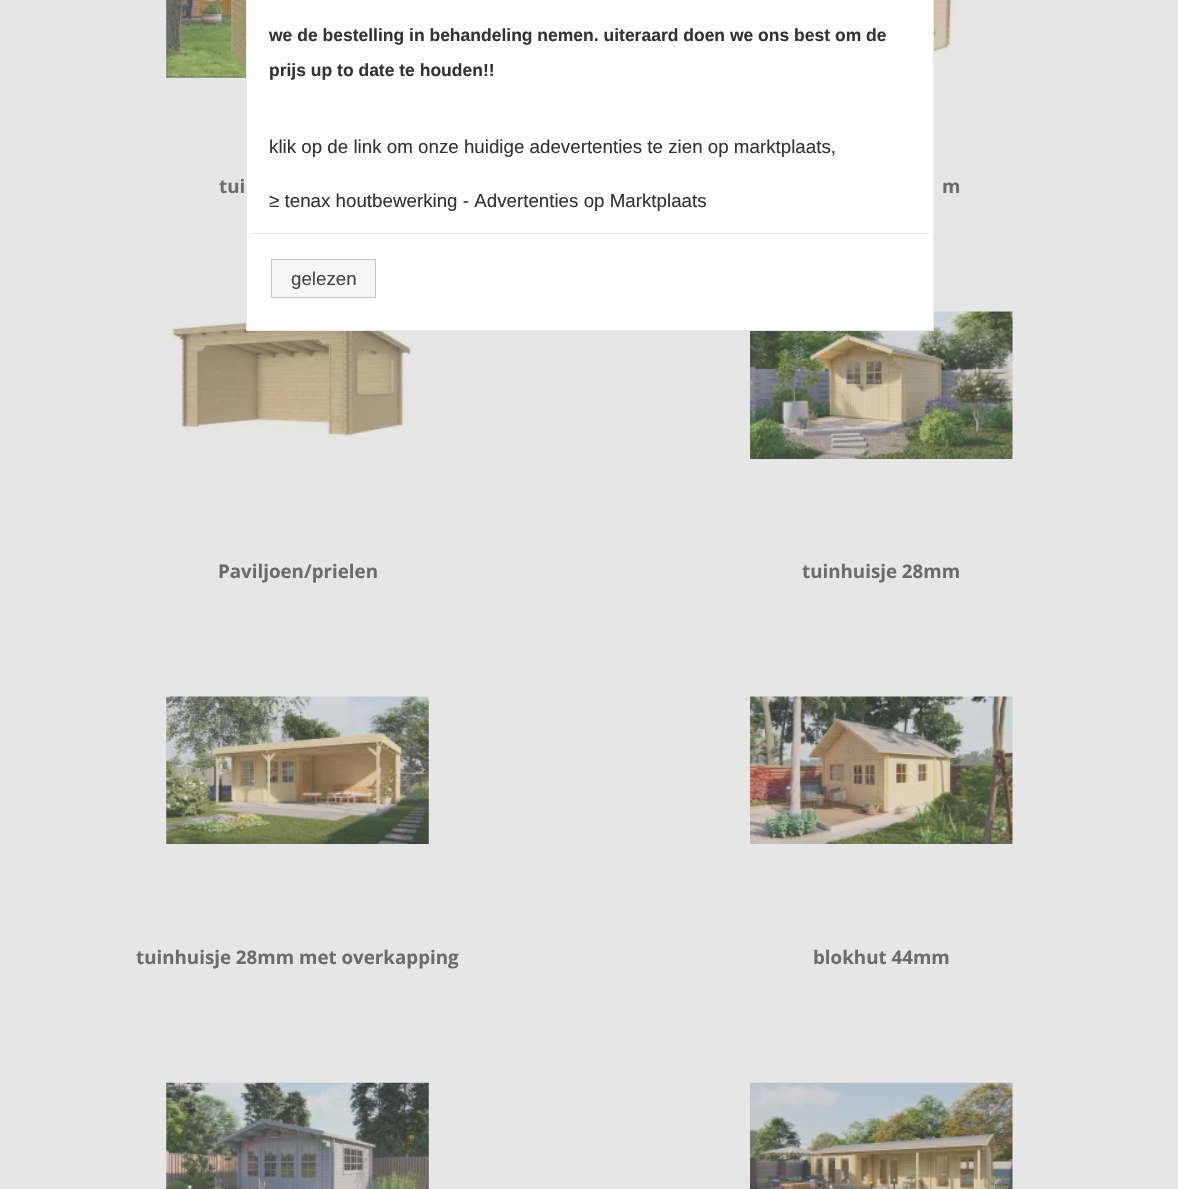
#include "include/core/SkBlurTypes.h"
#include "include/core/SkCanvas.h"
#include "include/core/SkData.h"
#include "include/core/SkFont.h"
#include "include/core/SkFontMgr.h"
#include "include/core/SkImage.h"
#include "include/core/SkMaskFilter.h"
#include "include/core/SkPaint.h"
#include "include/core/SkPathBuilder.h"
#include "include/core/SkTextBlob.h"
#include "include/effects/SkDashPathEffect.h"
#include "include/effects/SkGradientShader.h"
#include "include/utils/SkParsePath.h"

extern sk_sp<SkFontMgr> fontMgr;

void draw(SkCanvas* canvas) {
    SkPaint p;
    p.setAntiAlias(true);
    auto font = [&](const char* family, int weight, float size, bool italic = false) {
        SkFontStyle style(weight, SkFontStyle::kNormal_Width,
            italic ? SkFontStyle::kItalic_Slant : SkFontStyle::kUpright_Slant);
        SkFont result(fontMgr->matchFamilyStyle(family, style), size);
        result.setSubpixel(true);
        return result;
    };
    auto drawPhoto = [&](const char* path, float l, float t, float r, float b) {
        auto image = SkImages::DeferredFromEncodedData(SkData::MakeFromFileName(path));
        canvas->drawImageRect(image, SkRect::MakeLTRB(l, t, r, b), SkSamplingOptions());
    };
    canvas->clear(0xFFE6E6E6);
    drawPhoto("media/3.png", 166, 313, 413, 443);
    drawPhoto("media/4.png", 750, 311, 1013, 459);
    p.setColor(0xFFFFFFFF);
    canvas->drawRect(SkRect::MakeLTRB(246.5f, -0.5f, 933.5f, 330.5f), p);
    p.setStyle(SkPaint::kStroke_Style);
    p.setStrokeWidth(1);
    p.setColor(0xFFE8E8E8);
    canvas->drawRect(SkRect::MakeLTRB(246.5f, -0.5f, 933.5f, 330.5f), p);
    auto font1 = font("Liberation Sans", 700, 17.5f);
    p.setStyle(SkPaint::kFill_Style);
    p.setColor(0xFF333333);
    canvas->drawString("we de bestelling in behandeling nemen. uiteraard doen we ons best om de", 269, 41, font1, p);
    canvas->drawString("prijs up to date te houden!!", 269, 76, font1, p);
    auto font2 = font("Liberation Sans", 400, 18.75f);
    canvas->drawString("klik op de link om onze huidige adevertenties te zien op marktplaats,", 269, 153, font2, p);
    canvas->drawString("≥ tenax houtbewerking - Advertenties op Marktplaats", 269, 207, font2, p);
    p.setColor(0xFFE8E8E8);
    canvas->drawRect(SkRect::MakeLTRB(251, 233, 929, 234), p);
    p.setColor(0xFFF6F6F6);
    canvas->drawRect(SkRect::MakeLTRB(271.5f, 259.5f, 375.5f, 297.5f), p);
    p.setStyle(SkPaint::kStroke_Style);
    p.setColor(0xFFC5C5C5);
    canvas->drawRect(SkRect::MakeLTRB(271.5f, 259.5f, 375.5f, 297.5f), p);
    p.setStyle(SkPaint::kFill_Style);
    p.setColor(0xFF454545);
    canvas->drawString("gelezen", 291, 285, font2, p);
    drawPhoto("media/1.png", 166, 0, 246, 78);
    auto font3 = font("Open Sans", 700, 18.75f);
    p.setColor(0xFF6C6C6C);
    canvas->drawString("tui", 219, 193, font3, p);
    drawPhoto("media/2.png", 934, 0, 956, 68);
    {
        const struct { const char* s; float x, y; } items[] = {
            {"m", 942, 193},
            {"Paviljoen/prielen", 218, 578},
            {"tuinhuisje 28mm", 802, 578},
        };
        for (auto [s, x, y] : items) {
            canvas->drawString(s, x, y, font3, p);
        }
    }
    drawPhoto("media/5.png", 166, 696, 429, 844);
    canvas->drawString("tuinhuisje 28mm met overkapping", 136, 964, font3, p);
    drawPhoto("media/6.png", 750, 696, 1013, 844);
    canvas->drawString("blokhut 44mm", 813, 964, font3, p);
    drawPhoto("media/7.png", 166, 1082, 429, 1189);
    drawPhoto("media/8.png", 750, 1082, 1013, 1189);
}
